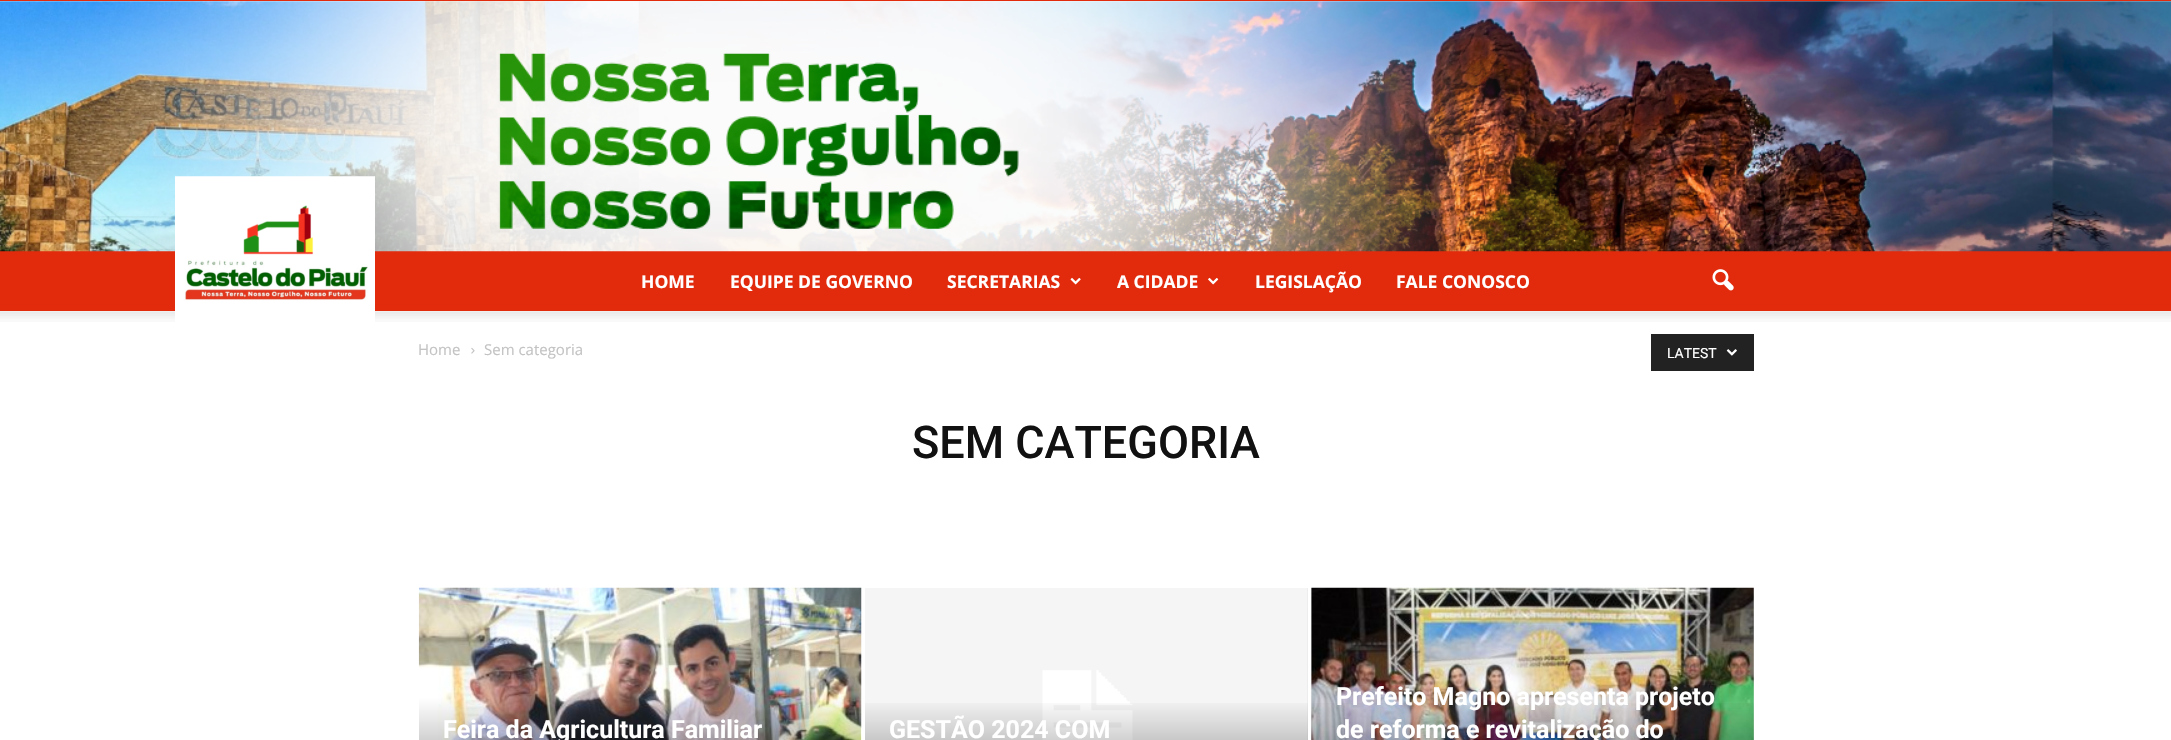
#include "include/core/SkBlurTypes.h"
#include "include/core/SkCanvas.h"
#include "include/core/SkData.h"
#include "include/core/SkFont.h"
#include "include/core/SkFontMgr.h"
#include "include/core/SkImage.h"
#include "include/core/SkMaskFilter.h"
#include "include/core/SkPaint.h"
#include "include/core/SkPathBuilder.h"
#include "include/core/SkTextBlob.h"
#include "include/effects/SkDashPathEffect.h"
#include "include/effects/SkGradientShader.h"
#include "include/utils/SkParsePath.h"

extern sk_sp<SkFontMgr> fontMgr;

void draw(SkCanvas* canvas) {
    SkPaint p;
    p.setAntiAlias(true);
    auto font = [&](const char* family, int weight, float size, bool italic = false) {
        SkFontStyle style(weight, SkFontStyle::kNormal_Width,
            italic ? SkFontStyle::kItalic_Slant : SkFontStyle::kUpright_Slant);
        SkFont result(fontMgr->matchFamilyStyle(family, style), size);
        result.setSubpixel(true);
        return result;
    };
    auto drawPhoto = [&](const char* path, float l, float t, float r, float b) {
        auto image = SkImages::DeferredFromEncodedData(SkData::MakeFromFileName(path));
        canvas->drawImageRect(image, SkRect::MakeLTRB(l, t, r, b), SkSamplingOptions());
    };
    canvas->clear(0xFFFFFFFF);
    p.setColor(0xFFE22A0D);
    canvas->drawRect(SkRect::MakeLTRB(0, 0, 2171, 1), p);
    canvas->drawRect(SkRect::MakeLTRB(0, 251, 2171, 311), p);
    drawPhoto("media/1.png", 0, 1, 2171, 252);
    drawPhoto("media/6.png", 0, 311, 2171, 322);
    drawPhoto("media/2.png", 175, 176, 375, 322);
    auto font1 = font("Open Sans", 700, 17.5f);
    p.setColor(0xFFFFFFFF);
    {
        const struct { const char* s; float x, y; } items[] = {
            {"HOME", 641, 288},
            {"EQUIPE DE GOVERNO", 730, 288},
            {"SECRETARIAS", 947, 288},
        };
        for (auto [s, x, y] : items) {
            canvas->drawString(s, x, y, font1, p);
        }
    }
    drawPhoto("media/3.png", 1070, 277, 1081, 285);
    canvas->drawString("A CIDADE", 1117, 288, font1, p);
    drawPhoto("media/4.png", 1208, 277, 1219, 285);
    canvas->drawString("LEGISLAÇÃO", 1255, 288, font1, p);
    canvas->drawString("FALE CONOSCO", 1396, 288, font1, p);
    drawPhoto("media/5.png", 1712, 269, 1734, 291);
    auto font2 = font("Open Sans", 400, 15);
    p.setColor(0xFFC3C3C3);
    canvas->drawString("Home", 418, 355, font2, p);
    drawPhoto("media/7.png", 471, 347, 475, 354);
    canvas->drawString("Sem categoria", 484, 355, font2, p);
    p.setColor(0xFF222222);
    canvas->drawRect(SkRect::MakeLTRB(1651, 334, 1754, 371), p);
    auto font3 = font("Roboto", 400, 14);
    p.setColor(0xFFFFFFFF);
    canvas->drawString("LATEST", 1667, 358, font3, p);
    drawPhoto("media/8.png", 1726, 349, 1737, 356);
    auto font4 = font("Roboto", 500, 45);
    p.setColor(0xFF111111);
    canvas->drawString("SEM CATEGORIA", 912, 458, font4, p);
    drawPhoto("media/9.png", 418, 587, 862, 740);
    auto font5 = font("Roboto", 700, 25);
    p.setColor(0xFFFFFFFF);
    canvas->drawString("Feira da Agricultura Familiar", 443, 738, font5, p);
    p.setColor(0xFFE5E5E5);
    canvas->drawRect(SkRect::MakeLTRB(1307, 588, 1308, 740), p);
    drawPhoto("media/10.png", 865, 588, 1308, 740);
    {
        const SkColor colors[] = {0x00000000, 0xB3000000};
        const float stops[] = {0.4f, 1};
        const SkPoint ends[] = {{1086, 588}, {1086, 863}};
        p.setShader(SkGradientShader::MakeLinear(ends, colors, stops, 2, SkTileMode::kClamp));
        p.setAlpha(255);
    }
    canvas->drawRect(SkRect::MakeLTRB(865, 703, 1308, 740), p);
    p.setShader(nullptr);
    p.setColor(0xFFFFFFFF);
    canvas->drawString("GESTÃO 2024 COM", 889, 738, font5, p);
    p.setColor(0xFFE5E5E5);
    canvas->drawRect(SkRect::MakeLTRB(1311, 588, 1754, 740), p);
    drawPhoto("media/11.png", 1311, 587, 1754, 740);
    {
        const SkColor colors[] = {0x00000000, 0xB3000000};
        const float stops[] = {0.4f, 1};
        const SkPoint ends[] = {{1533, 588}, {1533, 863}};
        p.setShader(SkGradientShader::MakeLinear(ends, colors, stops, 2, SkTileMode::kClamp));
        p.setAlpha(255);
    }
    canvas->drawRect(SkRect::MakeLTRB(1311, 703, 1754, 740), p);
    p.setShader(nullptr);
    p.setColor(0xFFFFFFFF);
    canvas->drawString("Prefeito Magno apresenta projeto", 1336, 705, font5, p);
    canvas->drawString("de reforma e revitalização do", 1336, 738, font5, p);
}
